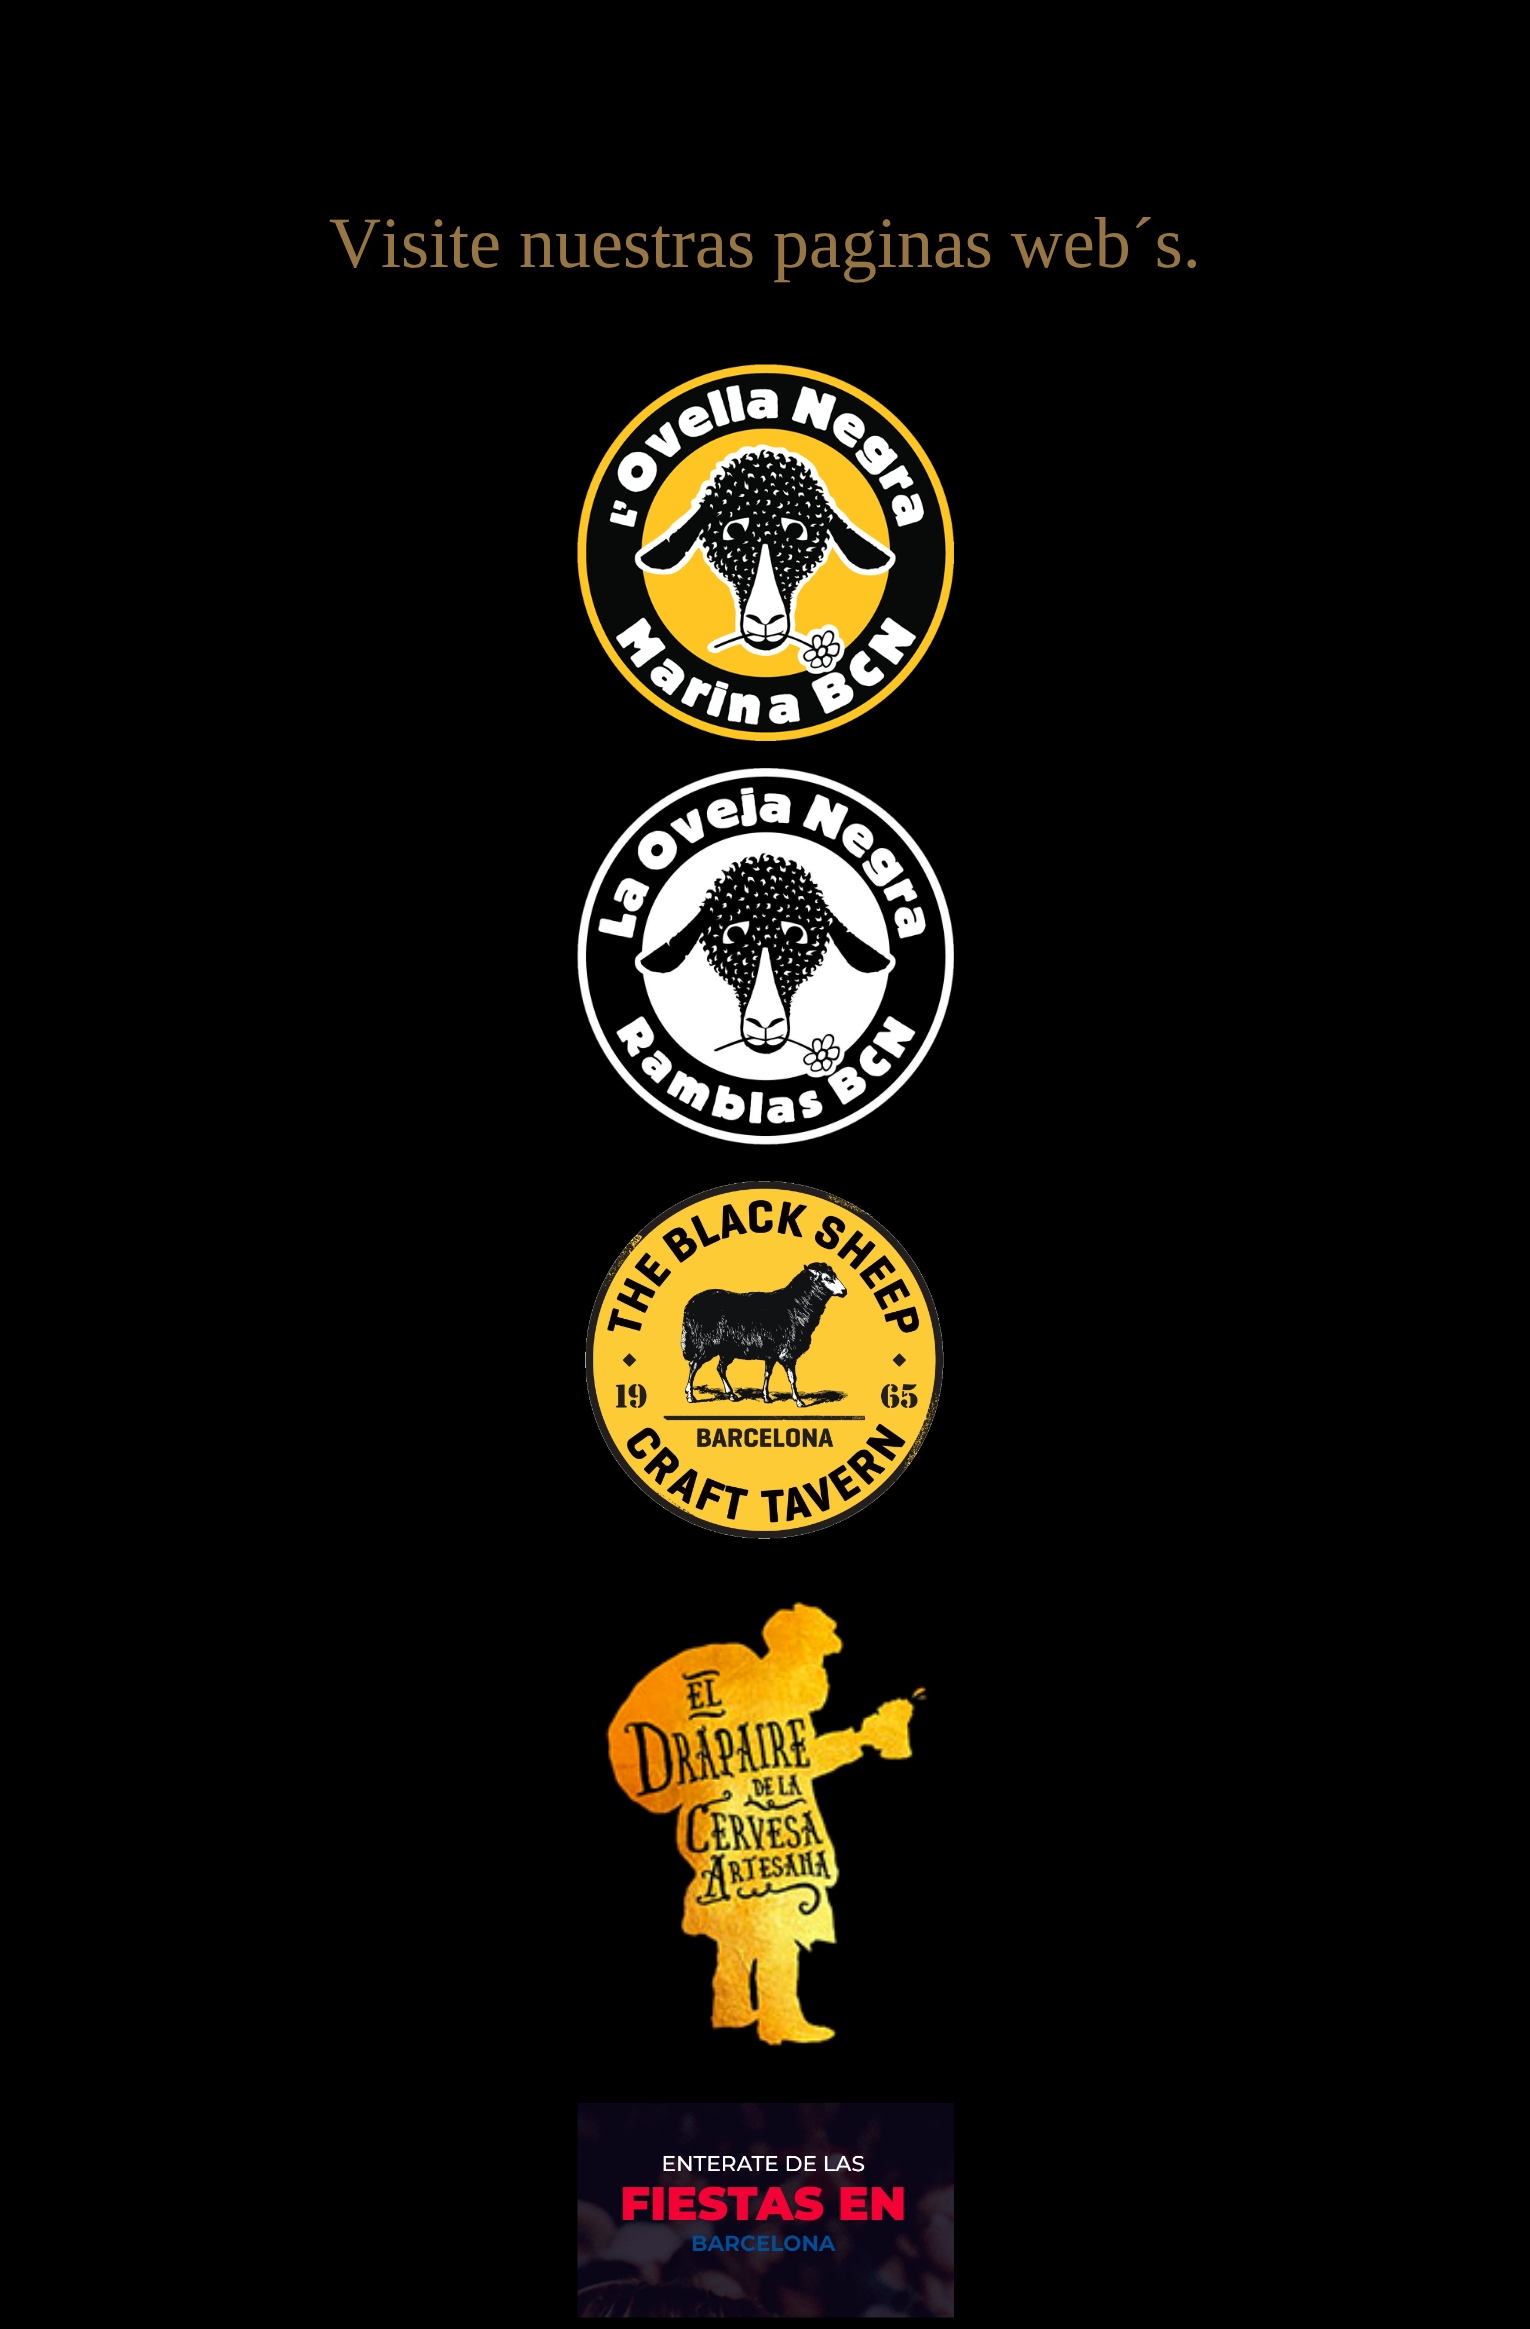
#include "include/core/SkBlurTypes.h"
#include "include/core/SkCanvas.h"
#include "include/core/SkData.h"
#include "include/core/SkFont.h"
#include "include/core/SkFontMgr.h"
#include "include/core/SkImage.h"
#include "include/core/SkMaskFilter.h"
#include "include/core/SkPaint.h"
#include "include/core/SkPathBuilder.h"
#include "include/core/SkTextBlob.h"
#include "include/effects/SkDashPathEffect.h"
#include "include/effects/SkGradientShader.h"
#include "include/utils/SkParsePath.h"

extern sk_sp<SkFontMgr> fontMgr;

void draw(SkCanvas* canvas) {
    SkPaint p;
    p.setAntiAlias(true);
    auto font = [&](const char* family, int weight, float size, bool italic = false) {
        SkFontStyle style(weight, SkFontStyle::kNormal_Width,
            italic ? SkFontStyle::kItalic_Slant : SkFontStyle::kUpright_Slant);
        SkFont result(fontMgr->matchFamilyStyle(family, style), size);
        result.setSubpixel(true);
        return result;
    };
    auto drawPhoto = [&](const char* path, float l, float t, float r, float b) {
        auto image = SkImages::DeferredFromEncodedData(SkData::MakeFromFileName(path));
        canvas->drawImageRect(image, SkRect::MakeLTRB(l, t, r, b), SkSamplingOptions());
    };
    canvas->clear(0xFF000000);
    auto font1 = font("Liberation Serif", 400, 72);
    p.setColor(0xFF987644);
    canvas->drawString("Visite nuestras paginas web´s.", 329, 267, font1, p);
    drawPhoto("media/1.png", 577, 364, 954, 741);
    drawPhoto("media/2.png", 577, 768, 954, 1145);
    drawPhoto("media/3.png", 585, 1181, 944, 1539);
    drawPhoto("media/4.png", 600, 1591, 932, 2049);
    drawPhoto("media/5.png", 577, 2103, 954, 2318);
}
